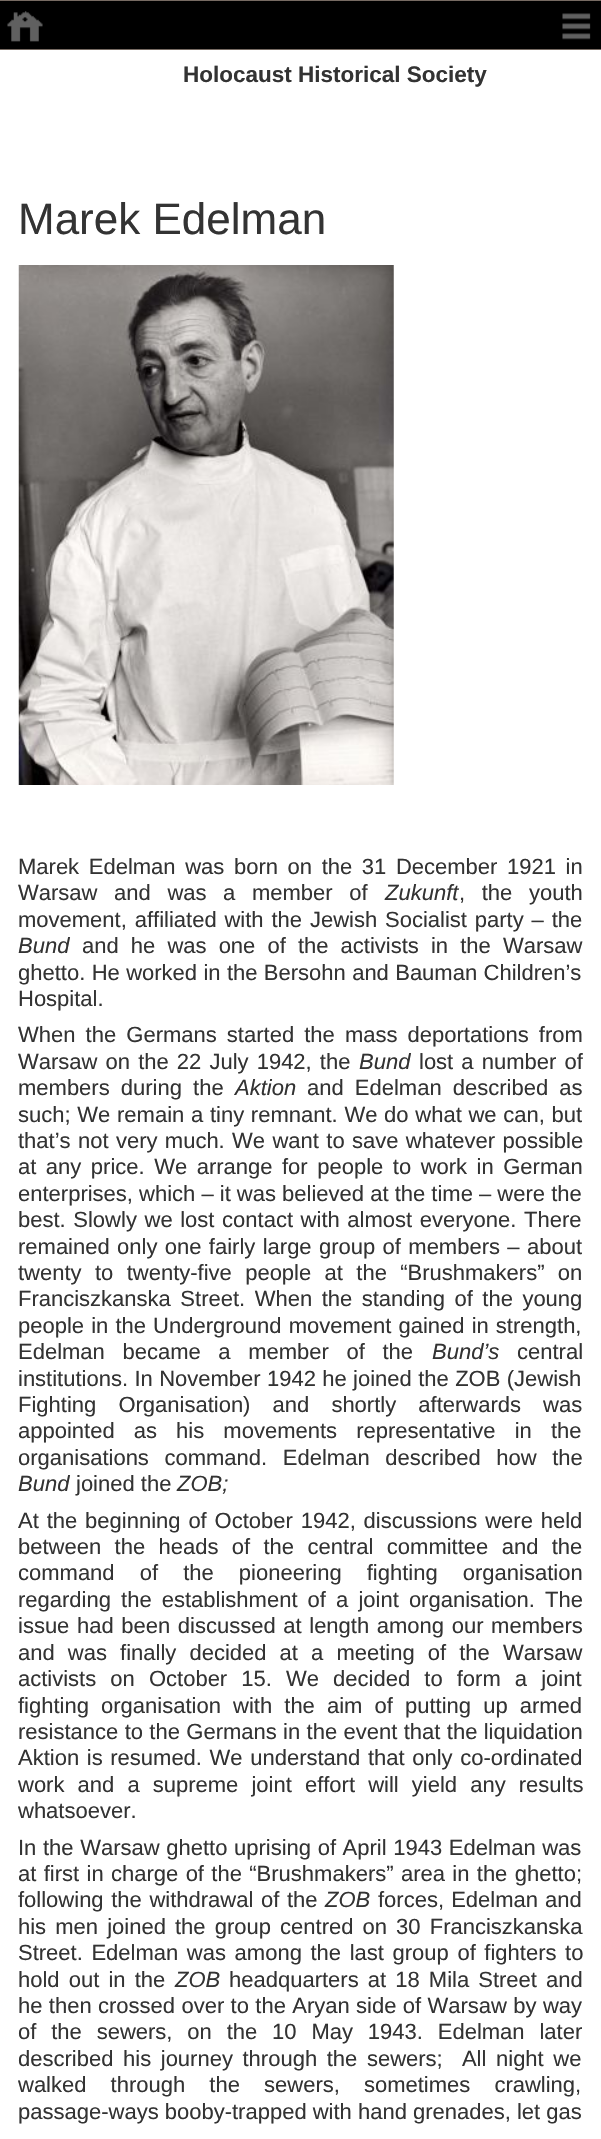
#include "include/core/SkBlurTypes.h"
#include "include/core/SkCanvas.h"
#include "include/core/SkData.h"
#include "include/core/SkFont.h"
#include "include/core/SkFontMgr.h"
#include "include/core/SkImage.h"
#include "include/core/SkMaskFilter.h"
#include "include/core/SkPaint.h"
#include "include/core/SkPathBuilder.h"
#include "include/core/SkTextBlob.h"
#include "include/effects/SkDashPathEffect.h"
#include "include/effects/SkGradientShader.h"
#include "include/utils/SkParsePath.h"

extern sk_sp<SkFontMgr> fontMgr;

void draw(SkCanvas* canvas) {
    SkPaint p;
    p.setAntiAlias(true);
    auto font = [&](const char* family, int weight, float size, bool italic = false) {
        SkFontStyle style(weight, SkFontStyle::kNormal_Width,
            italic ? SkFontStyle::kItalic_Slant : SkFontStyle::kUpright_Slant);
        SkFont result(fontMgr->matchFamilyStyle(family, style), size);
        result.setSubpixel(true);
        return result;
    };
    auto drawTracked = [&](const char* s, float x, float y, const SkFont& font, const SkPaint& ink, float letter, float word) {
        std::vector<SkGlyphID> glyphs(font.countText(s, strlen(s), SkTextEncoding::kUTF8));
        std::vector<float> xs(glyphs.size());
        font.textToGlyphs(s, strlen(s), SkTextEncoding::kUTF8, glyphs);
        font.getXPos(glyphs, xs, x);
        float extra = 0;
        for (size_t i = 0; i < glyphs.size(); i++) {
            xs[i] += extra;
            extra += letter + word * (glyphs[i] == font.unicharToGlyph(' '));
        }
        canvas->drawTextBlob(SkTextBlob::MakeFromPosHGlyphs(glyphs, xs, y, font), 0, 0, ink);
    };
    auto drawPhoto = [&](const char* path, float l, float t, float r, float b) {
        auto image = SkImages::DeferredFromEncodedData(SkData::MakeFromFileName(path));
        canvas->drawImageRect(image, SkRect::MakeLTRB(l, t, r, b), SkSamplingOptions());
    };
    canvas->clear(0xFFFFFFFF);
    {
        const struct { float l, t, r, b; SkColor color; } items[] = {
            {0, 1, 601, 49, 0xFF000000},
            {0, 0, 601, 1, 0xFF766A62},
            {0, 49, 601, 50, 0xFF766A62},
        };
        for (auto [l, t, r, b, color] : items) {
            p.setColor(color);
            canvas->drawRect(SkRect::MakeLTRB(l, t, r, b), p);
        }
    }
    drawPhoto("media/1.png", 7, 11, 43, 42);
    drawPhoto("media/2.png", 562, 13, 591, 40);
    auto font1 = font("Liberation Sans", 700, 22.5f);
    p.setColor(0xFF333333);
    canvas->drawString("Holocaust Historical Society", 183, 82, font1, p);
    auto font2 = font("Liberation Sans", 400, 44);
    canvas->drawString("Marek Edelman", 18, 234, font2, p);
    drawPhoto("media/3.png", 18, 265, 394, 785);
    auto font3 = font("Liberation Sans", 400, 22);
    drawTracked("Marek Edelman was born on the 31 December 1921 in", 18, 874, font3, p, 0, 3.5f);
    drawTracked("Warsaw and was a member of", 18, 900, font3, p, 0, 10.5f);
    auto font4 = font("Liberation Sans", 400, 22, true);
    canvas->drawString("Zukunft", 385, 900, font4, p);
    drawTracked(", the youth", 459, 900, font3, p, 0, 10.5f);
    drawTracked("movement, affiliated with the Jewish Socialist party – the", 18, 927, font3, p, 0, 1.75f);
    canvas->drawString("Bund", 18, 953, font4, p);
    drawTracked("and he was one of the activists in the Warsaw", 82, 953, font3, p, 0, 6);
    drawTracked("ghetto. He worked in the Bersohn and Bauman Children’s", 18, 980, font3, p, 0, 0.25f);
    canvas->drawString("Hospital.", 18, 1006, font3, p);
    drawTracked("When the Germans started the mass deportations from", 18, 1042, font3, p, 0, 4);
    drawTracked("Warsaw on the 22 July 1942, the", 18, 1069, font3, p, 0, 2);
    canvas->drawString("Bund", 359, 1069, font4, p);
    drawTracked("lost a number of", 419, 1069, font3, p, 0, 2);
    drawTracked("members during the", 18, 1095, font3, p, 0, 5);
    canvas->drawString("Aktion", 235, 1095, font4, p);
    drawTracked("and Edelman described as", 307, 1095, font3, p, 0, 5);
    drawTracked("such; We remain a tiny remnant. We do what we can, but", 18, 1122, font3, p, 0, 0.6f);
    drawTracked("that’s not very much. We want to save whatever possible", 18, 1148, font3, p, 0, 1.25f);
    drawTracked("at any price. We arrange for people to work in German", 18, 1174, font3, p, 0, 3.4f);
    canvas->drawString("enterprises, which – it was believed at the time – were the", 18, 1201, font3, p);
    drawTracked("best. Slowly we lost contact with almost everyone. There", 18, 1227, font3, p, 0, 1.5f);
    drawTracked("remained only one fairly large group of members – about", 18, 1254, font3, p, 0, 1.25f);
    drawTracked("twenty to twenty-five people at the “Brushmakers” on", 18, 1280, font3, p, 0, 7.25f);
    drawTracked("Franciszkanska Street. When the standing of the young", 18, 1306, font3, p, 0, 3.4f);
    drawTracked("people in the Underground movement gained in strength,", 18, 1333, font3, p, 0, 1);
    drawTracked("Edelman became a member of the", 18, 1359, font3, p, 0, 11.5f);
    canvas->drawString("Bund’s", 432, 1359, font4, p);
    canvas->drawString("central", 517, 1359, font3, p);
    drawTracked("institutions. In November 1942 he joined the ZOB (Jewish", 18, 1386, font3, p, 0, 0.25f);
    drawTracked("Fighting Organisation) and shortly afterwards was", 18, 1412, font3, p, 0, 16);
    drawTracked("appointed as his movements representative in the", 18, 1438, font3, p, 0, 13);
    drawTracked("organisations command. Edelman described how the", 18, 1465, font3, p, 0, 9.5f);
    canvas->drawString("Bund", 18, 1491, font4, p);
    canvas->drawString("joined the", 76, 1491, font3, p);
    canvas->drawString("ZOB;", 177, 1491, font4, p);
    drawTracked("At the beginning of October 1942, discussions were held", 18, 1528, font3, p, 0, 1.75f);
    drawTracked("between the heads of the central committee and the", 18, 1554, font3, p, 0, 7.25f);
    drawTracked("command of the pioneering fighting organisation", 18, 1580, font3, p, 0, 19);
    drawTracked("regarding the establishment of a joint organisation. The", 18, 1607, font3, p, 0, 4);
    drawTracked("issue had been discussed at length among our members", 18, 1633, font3, p, 0, 1.5f);
    drawTracked("and was finally decided at a meeting of the Warsaw", 18, 1660, font3, p, 0, 7);
    drawTracked("activists on October 15. We decided to form a joint", 18, 1686, font3, p, 0, 8);
    drawTracked("fighting organisation with the aim of putting up armed", 18, 1713, font3, p, 0, 6);
    drawTracked("resistance to the Germans in the event that the liquidation", 18, 1739, font3, p, 0, 0.25f);
    drawTracked("Aktion is resumed. We understand that only co-ordinated", 18, 1765, font3, p, 0, 1.5f);
    drawTracked("work and a supreme joint effort will yield any results", 18, 1792, font3, p, 0, 7);
    canvas->drawString("whatsoever.", 18, 1818, font3, p);
    drawTracked("In the Warsaw ghetto uprising of April 1943 Edelman was", 18, 1855, font3, p, 0, 0.5f);
    drawTracked("at first in charge of the “Brushmakers” area in the ghetto;", 18, 1881, font3, p, 0, 1.25f);
    drawTracked("following the withdrawal of the", 18, 1907, font3, p, 0, 1.5f);
    canvas->drawString("ZOB", 325, 1907, font4, p);
    drawTracked("forces, Edelman and", 378, 1907, font3, p, 0, 1);
    drawTracked("his men joined the group centred on 30 Franciszkanska", 18, 1934, font3, p, 0, 3);
    drawTracked("Street. Edelman was among the last group of fighters to", 18, 1960, font3, p, 0, 2.5f);
    drawTracked("hold out in the", 18, 1987, font3, p, 0, 3);
    canvas->drawString("ZOB", 175, 1987, font4, p);
    drawTracked("headquarters at 18 Mila Street and", 229, 1987, font3, p, 0, 3);
    drawTracked("he then crossed over to the Aryan side of Warsaw by way", 18, 2013, font3, p, 0, 0.25f);
    drawTracked("of the sewers, on the 10 May 1943. Edelman later", 18, 2039, font3, p, 0, 8.75f);
    drawTracked("described his journey through the sewers;  All night we", 18, 2066, font3, p, 0, 3.5f);
    drawTracked("walked through the sewers, sometimes crawling,", 18, 2092, font3, p, 0, 18);
    canvas->drawString("passage-ways booby-trapped with hand grenades, let gas", 18, 2119, font3, p);
}
